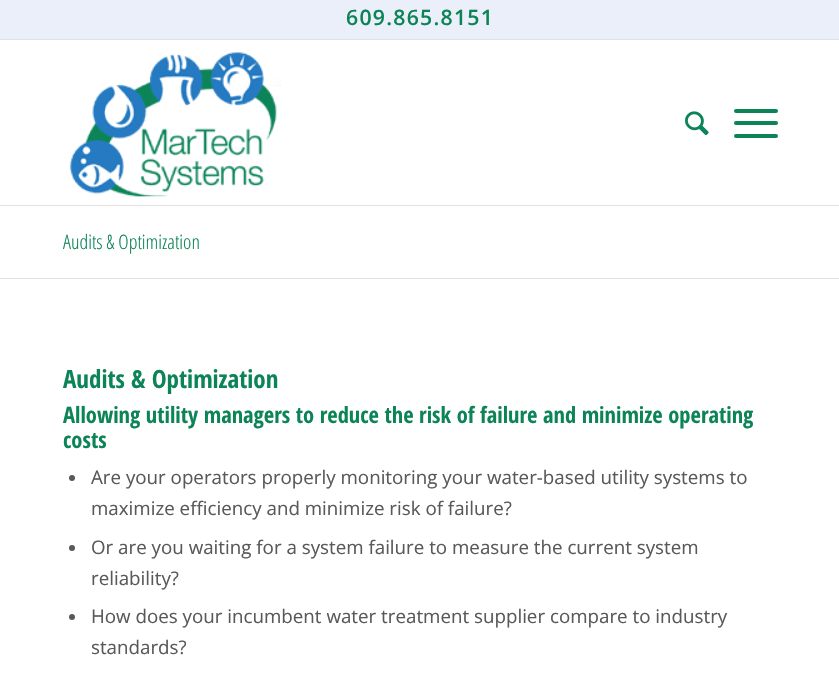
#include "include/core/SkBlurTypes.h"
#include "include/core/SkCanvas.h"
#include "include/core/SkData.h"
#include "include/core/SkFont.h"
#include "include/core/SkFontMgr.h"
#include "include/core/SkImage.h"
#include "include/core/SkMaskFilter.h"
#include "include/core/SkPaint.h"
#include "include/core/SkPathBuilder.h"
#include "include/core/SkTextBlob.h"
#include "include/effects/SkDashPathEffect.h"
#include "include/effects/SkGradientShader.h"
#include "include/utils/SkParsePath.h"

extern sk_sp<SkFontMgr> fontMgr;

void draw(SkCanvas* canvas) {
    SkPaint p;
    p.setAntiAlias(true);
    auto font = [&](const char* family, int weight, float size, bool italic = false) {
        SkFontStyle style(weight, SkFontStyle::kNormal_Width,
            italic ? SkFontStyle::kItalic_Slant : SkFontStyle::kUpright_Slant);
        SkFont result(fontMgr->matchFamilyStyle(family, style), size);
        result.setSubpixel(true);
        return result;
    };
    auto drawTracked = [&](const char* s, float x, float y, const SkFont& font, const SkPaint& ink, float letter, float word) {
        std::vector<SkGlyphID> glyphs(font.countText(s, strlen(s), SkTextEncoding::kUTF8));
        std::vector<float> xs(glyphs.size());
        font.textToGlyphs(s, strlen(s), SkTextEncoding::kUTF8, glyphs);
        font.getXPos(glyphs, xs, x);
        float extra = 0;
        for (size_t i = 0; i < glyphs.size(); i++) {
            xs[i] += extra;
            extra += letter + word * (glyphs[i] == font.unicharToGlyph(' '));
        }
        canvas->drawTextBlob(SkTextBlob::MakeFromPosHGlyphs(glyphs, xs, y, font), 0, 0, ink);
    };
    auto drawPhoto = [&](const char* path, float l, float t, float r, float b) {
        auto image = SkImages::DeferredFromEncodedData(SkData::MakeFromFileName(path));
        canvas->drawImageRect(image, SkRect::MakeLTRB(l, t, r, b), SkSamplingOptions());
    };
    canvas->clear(0xFFFFFFFF);
    p.setColor(0xFFEAEFFA);
    canvas->drawRect(SkRect::MakeLTRB(0, 0, 839, 39), p);
    p.setColor(0xFFE1E1E1);
    canvas->drawRect(SkRect::MakeLTRB(0, 39, 839, 40), p);
    auto font1 = font("Open Sans", 600, 21.25f);
    p.setColor(0xFF0C8457);
    drawTracked("609.865.8151", 346, 25, font1, p, 1.25f, 0);
    p.setColor(0xFFE1E1E1);
    canvas->drawRect(SkRect::MakeLTRB(0, 205, 839, 206), p);
    drawPhoto("media/1.png", 69, 52, 282, 197);
    drawPhoto("media/2.png", 685, 111, 709, 136);
    p.setColor(0xFF0C8458);
    canvas->drawRoundRect(SkRect::MakeLTRB(734, 121, 778, 125), 2, 2, p);
    canvas->drawRoundRect(SkRect::MakeLTRB(734, 109, 778, 113), 2, 2, p);
    canvas->drawRoundRect(SkRect::MakeLTRB(734, 134, 778, 138), 2, 2, p);
    auto font2 = font("Open Sans Condensed", 300, 20);
    p.setColor(0xFF0C8457);
    canvas->drawString("Audits & Optimization", 63, 249, font2, p);
    p.setColor(0xFFE1E1E1);
    canvas->drawRect(SkRect::MakeLTRB(0, 278, 839, 279), p);
    auto font3 = font("Open Sans Condensed", 700, 25);
    p.setColor(0xFF0C8457);
    canvas->drawString("Audits", 63, 388, font3, p);
    canvas->drawString("& Optimization", 131, 388, font3, p);
    auto font4 = font("Open Sans Condensed", 700, 22.5f);
    canvas->drawString("Allowing utility managers to reduce the risk of failure and minimize operating", 63, 423, font4, p);
    canvas->drawString("costs", 63, 448, font4, p);
    p.setColor(0xFF595959);
    canvas->drawCircle(72, 478, 3, p);
    auto font5 = font("Open Sans", 400, 18.75f);
    canvas->drawString("Are your operators properly monitoring your water-based utility systems to", 91, 484, font5, p);
    canvas->drawString("maximize efficiency and minimize risk of failure?", 91, 515, font5, p);
    canvas->drawCircle(72, 548, 3, p);
    canvas->drawString("Or are you waiting for a system failure to measure the current system", 91, 554, font5, p);
    canvas->drawString("reliability?", 91, 585, font5, p);
    canvas->drawCircle(72, 617, 3, p);
    canvas->drawString("How does your incumbent water treatment supplier compare to industry", 91, 623, font5, p);
    canvas->drawString("standards?", 91, 654, font5, p);
}
